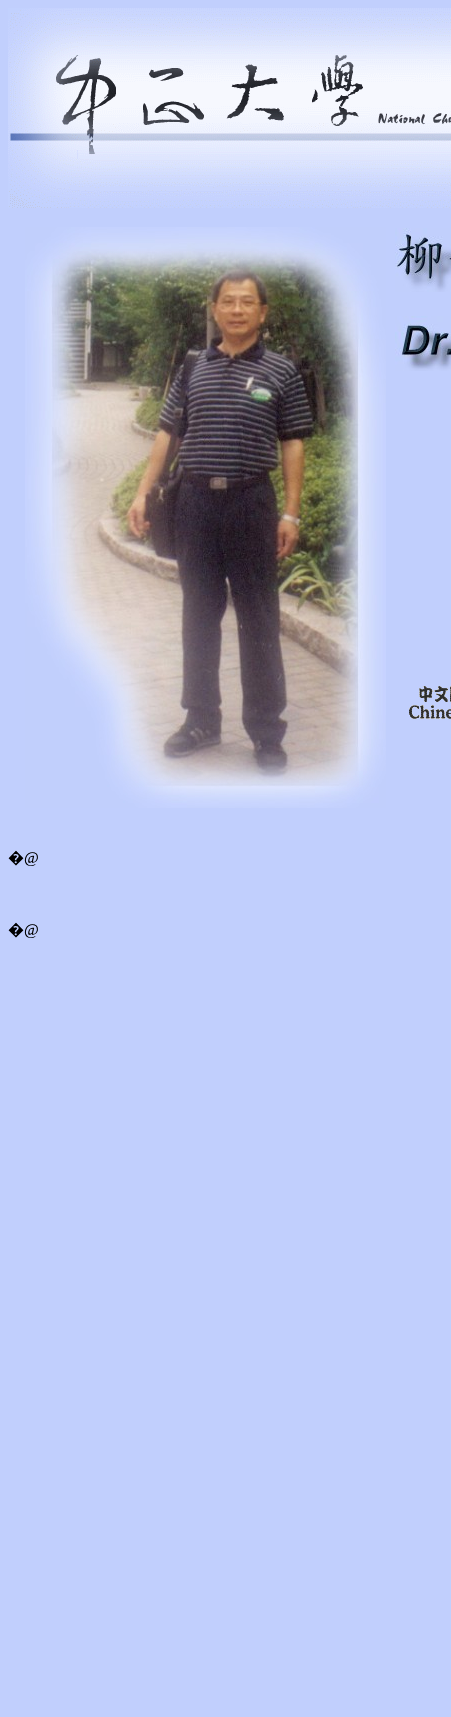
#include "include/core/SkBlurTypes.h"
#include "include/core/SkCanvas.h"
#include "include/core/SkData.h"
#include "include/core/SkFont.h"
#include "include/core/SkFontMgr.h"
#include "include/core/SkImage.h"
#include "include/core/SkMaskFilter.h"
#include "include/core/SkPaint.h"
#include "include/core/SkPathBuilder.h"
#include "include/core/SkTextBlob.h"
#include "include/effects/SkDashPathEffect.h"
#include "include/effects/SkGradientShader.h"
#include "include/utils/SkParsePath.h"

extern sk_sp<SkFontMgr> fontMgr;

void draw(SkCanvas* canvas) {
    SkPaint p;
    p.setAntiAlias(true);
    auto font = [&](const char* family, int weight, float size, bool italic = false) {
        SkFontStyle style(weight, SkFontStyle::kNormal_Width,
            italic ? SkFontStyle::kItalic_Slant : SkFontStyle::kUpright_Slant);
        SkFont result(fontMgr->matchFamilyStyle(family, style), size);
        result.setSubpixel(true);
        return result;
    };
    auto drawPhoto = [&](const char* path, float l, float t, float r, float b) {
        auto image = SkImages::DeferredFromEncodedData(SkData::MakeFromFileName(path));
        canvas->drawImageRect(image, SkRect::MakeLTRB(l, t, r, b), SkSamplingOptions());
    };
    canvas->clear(0xFFC1CFFD);
    drawPhoto("media/1.png", 8, 8, 451, 208);
    drawPhoto("media/2.png", 25, 227, 386, 808);
    drawPhoto("media/3.png", 395, 228, 451, 292);
    drawPhoto("media/4.png", 395, 316, 451, 371);
    drawPhoto("media/5.png", 409, 686, 451, 719);
    auto font1 = font("Noto Sans", 400, 16);
    p.setColor(0xFF000000);
    canvas->drawString("�", 8, 863, font1, p);
    auto font2 = font("Liberation Serif", 400, 16);
    canvas->drawString("@", 24, 863, font2, p);
    canvas->drawString("�", 8, 935, font1, p);
    canvas->drawString("@", 24, 935, font2, p);
}
